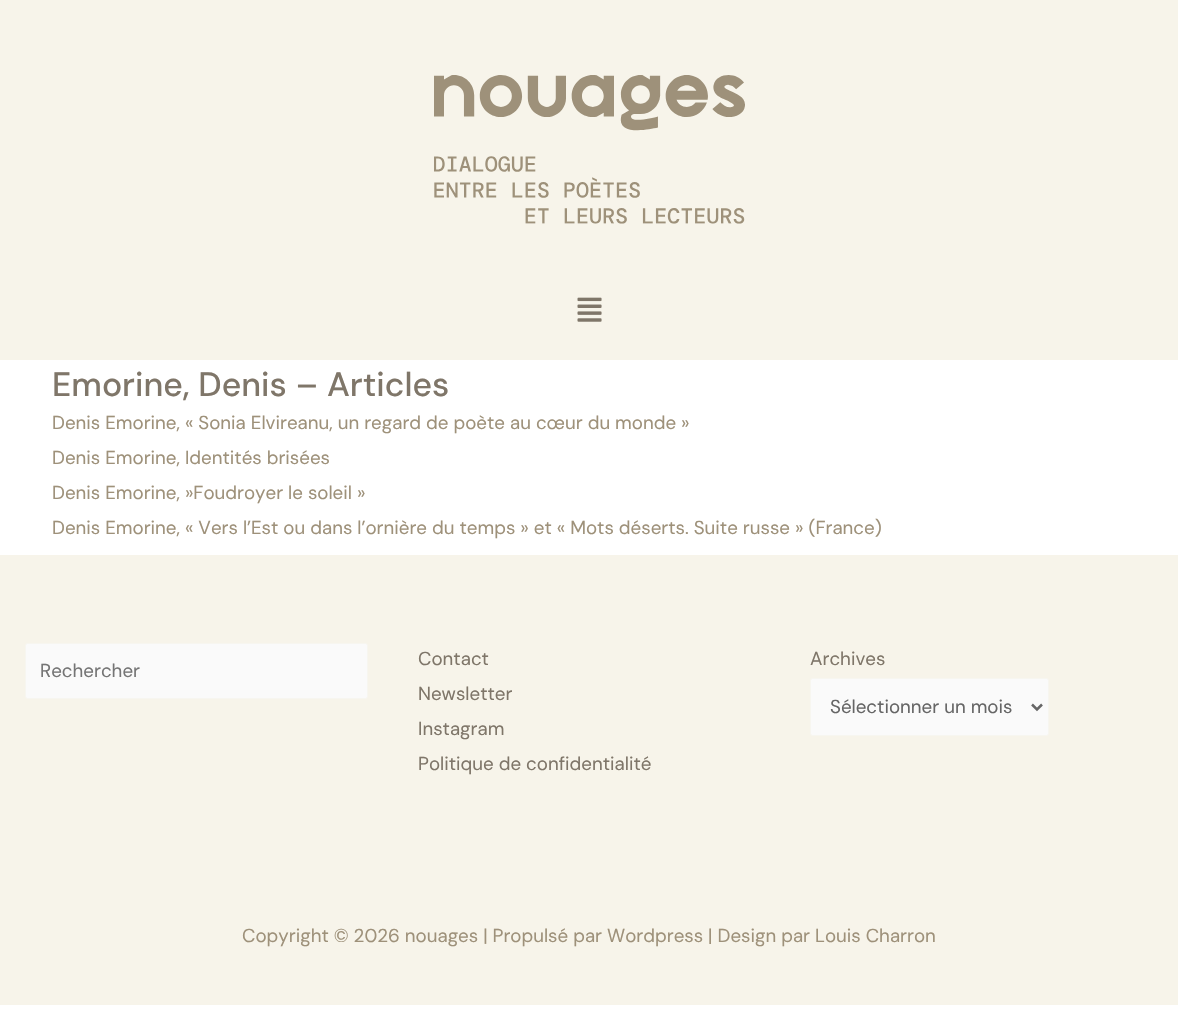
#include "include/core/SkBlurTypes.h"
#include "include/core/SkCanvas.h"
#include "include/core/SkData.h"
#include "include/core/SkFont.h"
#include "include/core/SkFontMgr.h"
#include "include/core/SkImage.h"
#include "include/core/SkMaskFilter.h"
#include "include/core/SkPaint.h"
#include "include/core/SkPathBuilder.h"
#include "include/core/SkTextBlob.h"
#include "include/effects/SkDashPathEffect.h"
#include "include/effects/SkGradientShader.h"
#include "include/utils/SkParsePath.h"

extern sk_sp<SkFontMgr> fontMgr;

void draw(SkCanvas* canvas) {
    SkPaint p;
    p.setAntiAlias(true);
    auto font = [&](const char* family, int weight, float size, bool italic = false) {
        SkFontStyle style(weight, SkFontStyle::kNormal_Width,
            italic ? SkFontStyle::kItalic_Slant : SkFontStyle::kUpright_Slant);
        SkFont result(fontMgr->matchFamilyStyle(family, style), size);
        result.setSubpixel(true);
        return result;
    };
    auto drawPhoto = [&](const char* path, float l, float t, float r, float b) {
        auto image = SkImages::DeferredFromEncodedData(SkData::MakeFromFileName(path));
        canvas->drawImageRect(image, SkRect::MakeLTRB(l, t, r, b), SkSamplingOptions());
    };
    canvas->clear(0xFFFFFFFF);
    p.setColor(0xFFF7F4EA);
    canvas->drawRect(SkRect::MakeLTRB(0, 0, 1178, 360), p);
    drawPhoto("media/1.png", 434, 75, 745, 224);
    drawPhoto("media/2.png", 577, 297, 602, 322);
    auto font1 = font("DM Sans", 500, 33.75f);
    p.setColor(0xFF7F7669);
    canvas->drawString("Emorine, Denis – Articles", 52, 396, font1, p);
    auto font2 = font("DM Sans", 400, 18.75f);
    p.setColor(0xFF9E917A);
    {
        const struct { const char* s; float x, y; } items[] = {
            {"Denis Emorine, « Sonia Elvireanu, un regard de poète au cœur du monde »", 52, 429},
            {"Denis Emorine, Identités brisées", 52, 464},
            {"Denis Emorine, »Foudroyer le soleil »", 52, 499},
            {"Denis Emorine, « Vers l’Est ou dans l’ornière du temps » et « Mots déserts. Suite russe » (France)", 52, 534},
        };
        for (auto [s, x, y] : items) {
            canvas->drawString(s, x, y, font2, p);
        }
    }
    p.setColor(0xFFF7F4EA);
    canvas->drawRect(SkRect::MakeLTRB(0, 555, 1178, 1005), p);
    p.setColor(0xFFFAFAFA);
    canvas->drawRoundRect(SkRect::MakeLTRB(25.5f, 643.5f, 367.5f, 698.5f), 2, 2, p);
    p.setStyle(SkPaint::kStroke_Style);
    p.setStrokeWidth(1);
    p.setColor(0xFFF7F6F0);
    canvas->drawRoundRect(SkRect::MakeLTRB(25.5f, 643.5f, 367.5f, 698.5f), 2, 2, p);
    p.setStyle(SkPaint::kFill_Style);
    p.setColor(0xFF757575);
    canvas->drawString("Rechercher", 40, 677, font2, p);
    p.setColor(0xFF7F7669);
    {
        const struct { const char* s; float x, y; } items[] = {
            {"Contact", 418, 665},
            {"Newsletter", 418, 700},
            {"Instagram", 418, 735},
            {"Politique de confidentialité", 418, 770},
            {"Archives", 810, 665},
        };
        for (auto [s, x, y] : items) {
            canvas->drawString(s, x, y, font2, p);
        }
    }
    p.setColor(0xFFFAFAFA);
    canvas->drawRoundRect(SkRect::MakeLTRB(810.5f, 678.5f, 1048.5f, 735.5f), 2, 2, p);
    p.setStyle(SkPaint::kStroke_Style);
    p.setColor(0xFFF7F6F0);
    canvas->drawRoundRect(SkRect::MakeLTRB(810.5f, 678.5f, 1048.5f, 735.5f), 2, 2, p);
    p.setStrokeWidth(2.5f);
    p.setColor(0xFF666666);
    canvas->drawPath(SkPathBuilder().moveTo(1032, 704.5f).lineTo(1037, 709.5f).lineTo(1042, 704.5f).detach(), p);
    p.setStyle(SkPaint::kFill_Style);
    canvas->drawString("Sélectionner un mois", 830, 713, font2, p);
    p.setColor(0xFF9E917A);
    canvas->drawString("Copyright © 2026 nouages | Propulsé par Wordpress | Design par Louis Charron", 242, 942, font2, p);
}
